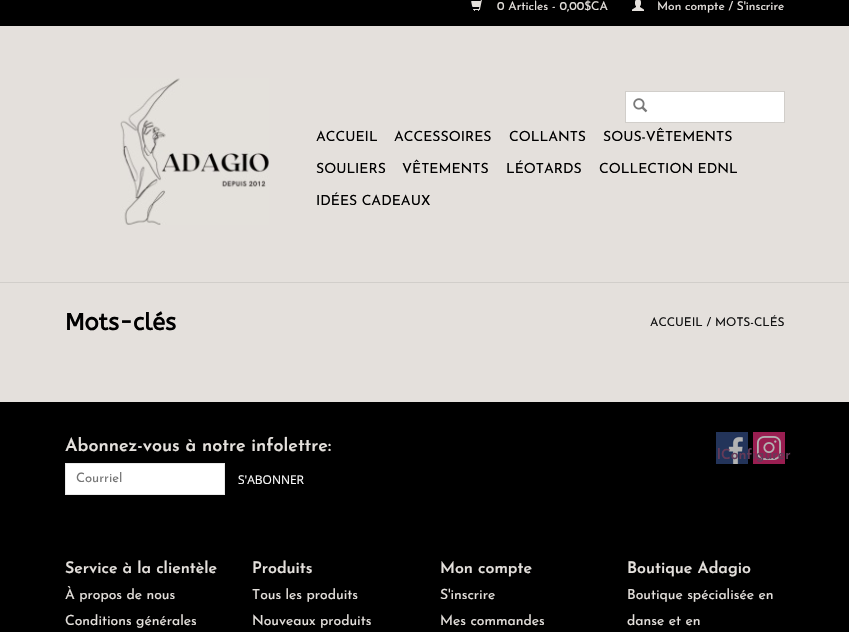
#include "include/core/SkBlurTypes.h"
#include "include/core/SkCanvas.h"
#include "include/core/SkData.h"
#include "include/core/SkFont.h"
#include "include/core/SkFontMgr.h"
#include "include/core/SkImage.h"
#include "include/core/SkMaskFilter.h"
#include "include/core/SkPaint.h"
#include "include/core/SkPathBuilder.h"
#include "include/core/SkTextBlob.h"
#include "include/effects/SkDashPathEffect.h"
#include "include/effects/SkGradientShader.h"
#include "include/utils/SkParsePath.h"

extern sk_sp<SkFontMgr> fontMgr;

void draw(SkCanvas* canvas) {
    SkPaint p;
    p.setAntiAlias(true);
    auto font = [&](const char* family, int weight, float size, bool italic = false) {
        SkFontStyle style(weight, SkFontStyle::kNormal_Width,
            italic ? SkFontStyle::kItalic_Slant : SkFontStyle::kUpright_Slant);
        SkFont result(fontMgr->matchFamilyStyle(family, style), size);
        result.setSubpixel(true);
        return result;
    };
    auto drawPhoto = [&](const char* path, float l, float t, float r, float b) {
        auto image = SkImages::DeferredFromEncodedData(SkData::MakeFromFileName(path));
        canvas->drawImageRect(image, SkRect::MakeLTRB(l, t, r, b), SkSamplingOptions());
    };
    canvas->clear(0xFFE4E0DC);
    p.setColor(0xFFD1CECA);
    canvas->drawRect(SkRect::MakeLTRB(0, 282, 849, 283), p);
    p.setColor(0xFF000000);
    canvas->drawRect(SkRect::MakeLTRB(0, 0, 849, 26), p);
    drawPhoto("media/1.png", 471, 0, 482, 11);
    auto font1 = font("Josefin Sans", 400, 12);
    p.setColor(0xFFE4E0DC);
    canvas->drawString("0 Articles - 0,00$CA", 497, 10, font1, p);
    drawPhoto("media/2.png", 632, 0, 644, 11);
    canvas->drawString("Mon compte / S'inscrire", 657, 10, font1, p);
    drawPhoto("media/3.png", 120, 78, 269, 225);
    p.setColor(0xFFFFFFFF);
    canvas->drawRect(SkRect::MakeLTRB(625.5f, 91.5f, 784.5f, 122.5f), p);
    p.setStyle(SkPaint::kStroke_Style);
    p.setStrokeWidth(1);
    p.setColor(0xFFD1CECA);
    canvas->drawRect(SkRect::MakeLTRB(625.5f, 91.5f, 784.5f, 122.5f), p);
    drawPhoto("media/4.png", 633, 98, 648, 113);
    auto font2 = font("Josefin Sans", 400, 14);
    p.setStyle(SkPaint::kFill_Style);
    p.setColor(0xFF000000);
    {
        const struct { const char* s; float x, y; } items[] = {
            {"ACCUEIL", 316, 141},
            {"ACCESSOIRES", 394, 141},
            {"COLLANTS", 509, 141},
            {"SOUS-VÊTEMENTS", 603, 141},
            {"SOULIERS", 316, 173},
            {"VÊTEMENTS", 402, 173},
            {"LÉOTARDS", 506, 173},
            {"COLLECTION EDNL", 599, 173},
            {"IDÉES CADEAUX", 316, 205},
        };
        for (auto [s, x, y] : items) {
            canvas->drawString(s, x, y, font2, p);
        }
    }
    auto font3 = font("ABeeZee", 700, 23.5f);
    canvas->drawString("Mots-clés", 65, 330, font3, p);
    p.setColor(0xFF141414);
    canvas->drawString("ACCUEIL / MOTS-CLÉS", 650, 326, font1, p);
    p.setColor(0xFF000000);
    canvas->drawRect(SkRect::MakeLTRB(0, 402, 849, 632), p);
    auto font4 = font("Josefin Sans", 600, 18);
    p.setColor(0xFFE4E0DC);
    canvas->drawString("Abonnez-vous à notre infolettre:", 65, 451, font4, p);
    p.setColor(0xFFFFFFFF);
    canvas->drawRect(SkRect::MakeLTRB(65.5f, 463.5f, 224.5f, 494.5f), p);
    p.setStyle(SkPaint::kStroke_Style);
    p.setColor(0xFFE9E9E9);
    canvas->drawRect(SkRect::MakeLTRB(65.5f, 463.5f, 224.5f, 494.5f), p);
    auto font5 = font("Josefin Sans", 400, 13);
    p.setStyle(SkPaint::kFill_Style);
    p.setColor(0xFF757575);
    canvas->drawString("Courriel", 76, 482, font5, p);
    auto font6 = font("Open Sans", 400, 12);
    p.setColor(0xFFFFFFFF);
    canvas->drawString("S'ABONNER", 238, 484, font6, p);
    drawPhoto("media/5.png", 716, 432, 748, 464);
    drawPhoto("media/6.png", 753, 432, 785, 464);
    auto font7 = font("Josefin Sans", 600, 14);
    p.setColor(0xFF643A58);
    canvas->drawString("l", 717, 459, font7, p);
    canvas->drawString("Configurer", 721, 459, font7, p);
    auto font8 = font("Josefin Sans", 600, 16);
    p.setColor(0xFFE4E0DC);
    canvas->drawString("Service à la clientèle", 65, 573, font8, p);
    canvas->drawString("À propos de nous", 65, 599, font2, p);
    canvas->drawString("Conditions générales", 65, 625, font2, p);
    canvas->drawString("Produits", 252, 573, font8, p);
    canvas->drawString("Tous les produits", 252, 599, font2, p);
    canvas->drawString("Nouveaux produits", 252, 625, font2, p);
    canvas->drawString("Mon compte", 440, 573, font8, p);
    canvas->drawString("S'inscrire", 440, 599, font2, p);
    canvas->drawString("Mes commandes", 440, 625, font2, p);
    canvas->drawString("Boutique Adagio", 627, 573, font8, p);
    canvas->drawString("Boutique spécialisée en", 627, 599, font2, p);
    canvas->drawString("danse et en", 627, 625, font2, p);
}
